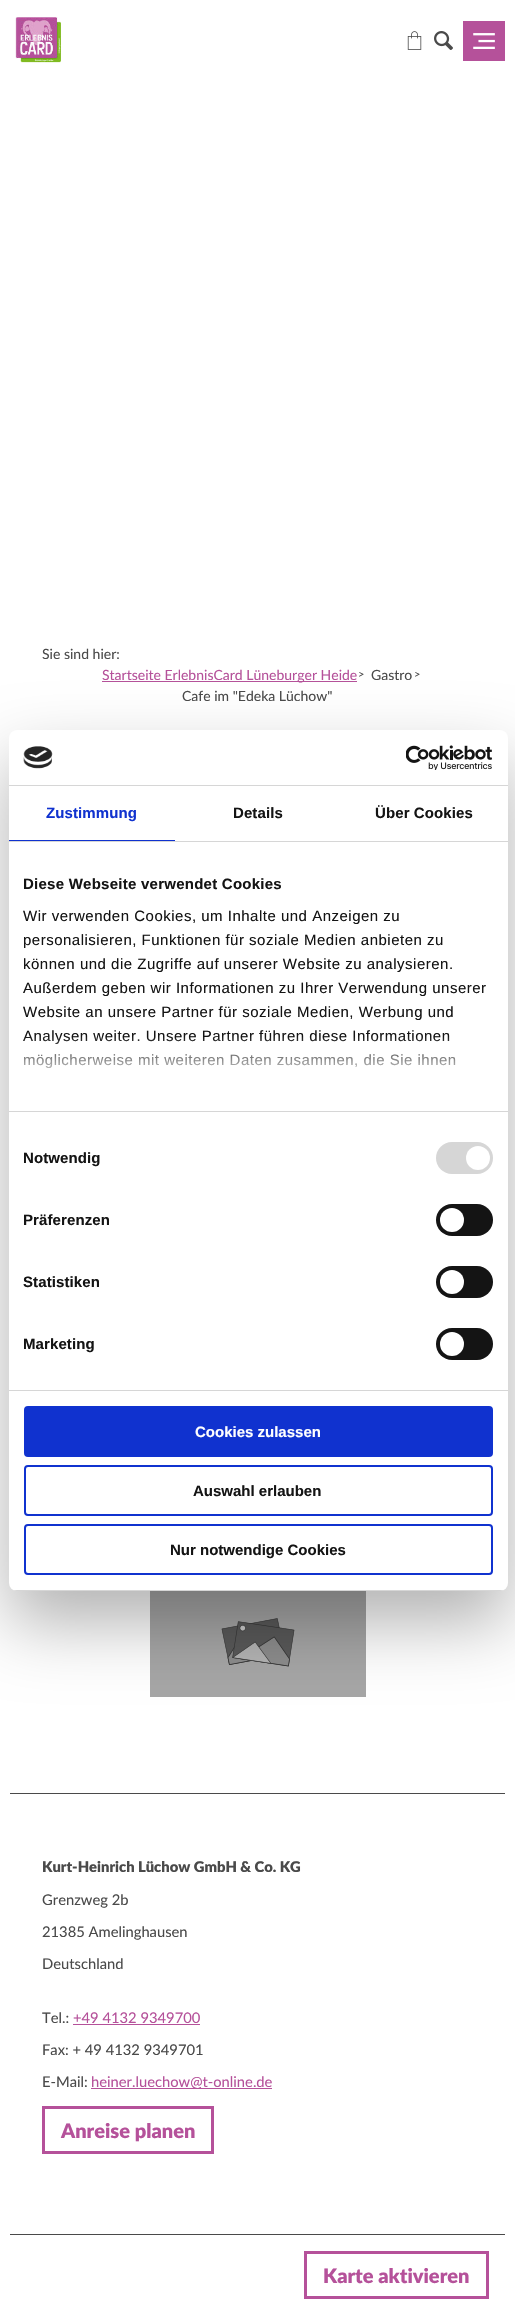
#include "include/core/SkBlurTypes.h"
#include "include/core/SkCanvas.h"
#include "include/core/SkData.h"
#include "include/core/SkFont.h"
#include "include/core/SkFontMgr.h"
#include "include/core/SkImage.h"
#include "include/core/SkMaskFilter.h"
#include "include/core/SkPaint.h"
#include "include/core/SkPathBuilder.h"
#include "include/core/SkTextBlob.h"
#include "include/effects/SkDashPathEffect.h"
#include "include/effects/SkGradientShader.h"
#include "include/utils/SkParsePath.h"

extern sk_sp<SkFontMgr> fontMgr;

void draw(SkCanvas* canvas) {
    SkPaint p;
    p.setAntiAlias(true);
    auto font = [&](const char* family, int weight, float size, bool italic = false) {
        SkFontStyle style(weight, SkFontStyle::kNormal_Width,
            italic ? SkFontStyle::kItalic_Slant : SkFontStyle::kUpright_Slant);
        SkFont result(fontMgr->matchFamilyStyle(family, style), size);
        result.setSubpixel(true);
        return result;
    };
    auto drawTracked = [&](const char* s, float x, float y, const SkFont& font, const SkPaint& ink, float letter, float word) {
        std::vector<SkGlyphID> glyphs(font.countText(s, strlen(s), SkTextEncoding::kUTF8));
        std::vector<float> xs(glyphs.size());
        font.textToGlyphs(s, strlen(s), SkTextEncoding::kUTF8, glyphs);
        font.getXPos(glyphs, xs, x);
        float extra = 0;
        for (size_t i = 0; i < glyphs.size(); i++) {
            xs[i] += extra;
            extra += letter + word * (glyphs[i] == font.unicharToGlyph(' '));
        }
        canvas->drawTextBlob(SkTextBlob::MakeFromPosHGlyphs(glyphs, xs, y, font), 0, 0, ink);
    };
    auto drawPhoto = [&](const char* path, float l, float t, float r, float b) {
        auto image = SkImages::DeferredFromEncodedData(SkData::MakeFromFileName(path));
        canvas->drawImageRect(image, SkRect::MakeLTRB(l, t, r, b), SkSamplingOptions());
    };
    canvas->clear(0xFFFFFFFF);
    drawPhoto("media/1.png", 15, 17, 61, 63);
    drawPhoto("media/2.png", 407, 31, 422, 50);
    drawPhoto("media/3.png", 434, 31, 453, 50);
    p.setColor(0xFFB5519A);
    canvas->drawRect(SkRect::MakeLTRB(463, 21, 505, 61), p);
    drawPhoto("media/4.png", 473, 33, 495, 49);
    auto font1 = font("Lato", 400, 14);
    p.setColor(0xFF4A4A4A);
    canvas->drawString("Sie sind hier:", 42, 659, font1, p);
    p.setColor(0xFFB5519A);
    canvas->drawRect(SkRect::MakeLTRB(102, 681, 357, 682), p);
    canvas->drawString("Startseite ErlebnisCard Lüneburger Heide", 102, 680, font1, p);
    auto font2 = font("Lato", 400, 11);
    p.setColor(0xFF4A4A4A);
    canvas->drawString(">", 358, 678, font2, p);
    canvas->drawString("Gastro", 371, 680, font1, p);
    canvas->drawString(">", 414, 678, font2, p);
    canvas->drawString("Cafe im \"Edeka Lüchow\"", 182, 701, font1, p);
    drawPhoto("media/5.png", 150, 1591, 366, 1697);
    canvas->drawRect(SkRect::MakeLTRB(10, 1793, 505, 1794), p);
    canvas->drawRect(SkRect::MakeLTRB(10, 2234, 505, 2235), p);
    auto font3 = font("Lato", 900, 14.75f);
    canvas->drawString("Kurt-Heinrich Lüchow GmbH & Co. KG", 42, 1872, font3, p);
    auto font4 = font("Lato", 400, 14.75f);
    {
        const struct { const char* s; float x, y; } items[] = {
            {"Grenzweg 2b", 42, 1905},
            {"21385 Amelinghausen", 42, 1937},
            {"Deutschland", 42, 1969},
            {"Tel.:", 42, 2023},
        };
        for (auto [s, x, y] : items) {
            canvas->drawString(s, x, y, font4, p);
        }
    }
    p.setColor(0xFFB5519A);
    canvas->drawString("+49 4132 9349700", 73, 2023, font4, p);
    canvas->drawRect(SkRect::MakeLTRB(73, 2024, 200, 2025), p);
    p.setColor(0xFF4A4A4A);
    canvas->drawString("Fax: + 49 4132 9349701", 42, 2055, font4, p);
    canvas->drawString("E-Mail:", 42, 2087, font4, p);
    p.setColor(0xFFB5519A);
    canvas->drawRect(SkRect::MakeLTRB(91, 2088, 272, 2089), p);
    canvas->drawString("heiner.luechow@t-online.de", 91, 2087, font4, p);
    p.setStyle(SkPaint::kStroke_Style);
    p.setStrokeWidth(3);
    canvas->drawRect(SkRect::MakeLTRB(43.5f, 2107.5f, 212.5f, 2152.5f), p);
    auto font5 = font("Lato", 900, 20);
    p.setStyle(SkPaint::kFill_Style);
    canvas->drawString("Anreise planen", 61, 2138, font5, p);
    p.setStyle(SkPaint::kStroke_Style);
    canvas->drawRect(SkRect::MakeLTRB(305.5f, 2252.5f, 487.5f, 2297.5f), p);
    p.setStyle(SkPaint::kFill_Style);
    canvas->drawString("Karte aktivieren", 323, 2283, font5, p);
    p.setColor(0x4D000000);
    p.setMaskFilter(SkMaskFilter::MakeBlur(kNormal_SkBlurStyle, 34));
    canvas->drawRoundRect(SkRect::MakeLTRB(9, 762, 508, 1623), 8, 8, p);
    p.setMaskFilter(nullptr);
    p.setColor(0xFFFFFFFF);
    canvas->drawRoundRect(SkRect::MakeLTRB(9, 730, 508, 1591), 8, 8, p);
    p.setColor(0xFFD6D6D6);
    canvas->drawRect(SkRect::MakeLTRB(9, 785, 508, 786), p);
    drawPhoto("media/6.png", 23, 746, 53, 769);
    drawPhoto("media/7.png", 406, 745, 493, 770);
    canvas->drawRect(SkRect::MakeLTRB(9, 841, 508, 842), p);
    p.setColor(0xFF1032CF);
    canvas->drawRect(SkRect::MakeLTRB(9, 840, 175, 841), p);
    auto font6 = font("Liberation Sans", 700, 15);
    drawTracked("Zustimmung", 46, 818, font6, p, 0.1f, 0);
    p.setColor(0xFF141414);
    drawTracked("Details", 233, 818, font6, p, 0.1f, 0);
    drawTracked("Über Cookies", 375, 818, font6, p, 0.1f, 0);
    p.setColor(0xFFD6D6D6);
    canvas->drawRect(SkRect::MakeLTRB(9, 1111, 508, 1112), p);
    p.setColor(0xFF141414);
    drawTracked("Diese Webseite verwendet Cookies", 23, 889, font6, p, 0.25f, 0);
    auto font7 = font("Liberation Sans", 400, 15);
    {
        const struct { const char* s; float x, y; } items[] = {
            {"Wir verwenden Cookies, um Inhalte und Anzeigen zu", 23, 921},
            {"personalisieren, Funktionen für soziale Medien anbieten zu", 23, 945},
            {"können und die Zugriffe auf unserer Website zu analysieren.", 23, 969},
            {"Außerdem geben wir Informationen zu Ihrer Verwendung unserer", 23, 993},
            {"Website an unsere Partner für soziale Medien, Werbung und", 23, 1017},
            {"Analysen weiter. Unsere Partner führen diese Informationen", 23, 1041},
            {"möglicherweise mit weiteren Daten zusammen, die Sie ihnen", 23, 1065},
        };
        for (auto [s, x, y] : items) {
            drawTracked(s, x, y, font7, p, 0.5f, 0);
        }
    }
    {
        const SkColor colors[] = {0xFFFFFFFF, 0xCCFFFFFF, 0x00FFFFFF};
        const float stops[] = {0, 0.5f, 1};
        const SkPoint ends[] = {{252, 1111}, {252, 1036}};
        p.setShader(SkGradientShader::MakeLinear(ends, colors, stops, 3, SkTileMode::kClamp));
        p.setAlpha(255);
    }
    canvas->drawRect(SkRect::MakeLTRB(23, 1037, 456, 1069), p);
    p.setShader(nullptr);
    p.setColor(0xFFD6D6D6);
    canvas->drawRect(SkRect::MakeLTRB(9, 1390, 508, 1391), p);
    p.setColor(0xFF141414);
    drawTracked("Notwendig", 23, 1163, font6, p, 0.1f, 0);
    p.setColor(0xFFD6D6D6);
    canvas->drawRoundRect(SkRect::MakeLTRB(436, 1142, 493, 1174), 16, 16, p);
    p.setColor(0xFFFFFFFF);
    canvas->drawCircle(478, 1158, 12, p);
    p.setColor(0xFF141414);
    drawTracked("Präferenzen", 23, 1225, font6, p, 0.1f, 0);
    canvas->drawRoundRect(SkRect::MakeLTRB(436, 1204, 493, 1236), 16, 16, p);
    p.setColor(0xFFFFFFFF);
    canvas->drawCircle(452, 1220, 12, p);
    p.setColor(0xFF141414);
    drawTracked("Statistiken", 23, 1287, font6, p, 0.1f, 0);
    canvas->drawRoundRect(SkRect::MakeLTRB(436, 1266, 493, 1298), 16, 16, p);
    p.setColor(0xFFFFFFFF);
    canvas->drawCircle(452, 1282, 12, p);
    p.setColor(0xFF141414);
    drawTracked("Marketing", 23, 1349, font6, p, 0.1f, 0);
    canvas->drawRoundRect(SkRect::MakeLTRB(436, 1328, 493, 1360), 16, 16, p);
    p.setColor(0xFFFFFFFF);
    canvas->drawCircle(452, 1344, 12, p);
    canvas->save();
    canvas->clipPath(SkPathBuilder().moveTo(17, 730).lineTo(500, 730).cubicTo(504.5f, 730, 508, 733.5f, 508, 738).lineTo(508, 1583).cubicTo(508, 1587.5f, 504.5f, 1591, 500, 1591).lineTo(17, 1591).cubicTo(12.5f, 1591, 9, 1587.5f, 9, 1583).lineTo(9, 738).cubicTo(9, 733.5f, 12.5f, 730, 17, 730).close().detach(), true);
    p.setColor(0xFFD6D6D6);
    canvas->drawRect(SkRect::MakeLTRB(9, 1590, 508, 1591), p);
    canvas->restore();
    p.setColor(0xFF1032CF);
    canvas->drawRoundRect(SkRect::MakeLTRB(25, 1407, 492, 1456), 3, 3, p);
    p.setStyle(SkPaint::kStroke_Style);
    p.setStrokeWidth(2);
    canvas->drawRoundRect(SkRect::MakeLTRB(25, 1407, 492, 1456), 3, 3, p);
    p.setStyle(SkPaint::kFill_Style);
    p.setColor(0xFFFFFFFF);
    canvas->drawString("Cookies zulassen", 195, 1437, font6, p);
    p.setStyle(SkPaint::kStroke_Style);
    p.setColor(0xFF1032CF);
    canvas->drawRoundRect(SkRect::MakeLTRB(25, 1466, 492, 1515), 3, 3, p);
    p.setStyle(SkPaint::kFill_Style);
    p.setColor(0xFF141414);
    canvas->drawString("Auswahl erlauben", 193, 1496, font6, p);
    p.setStyle(SkPaint::kStroke_Style);
    p.setColor(0xFF1032CF);
    canvas->drawRoundRect(SkRect::MakeLTRB(25, 1525, 492, 1574), 3, 3, p);
    p.setStyle(SkPaint::kFill_Style);
    p.setColor(0xFF141414);
    canvas->drawString("Nur notwendige Cookies", 170, 1555, font6, p);
}
